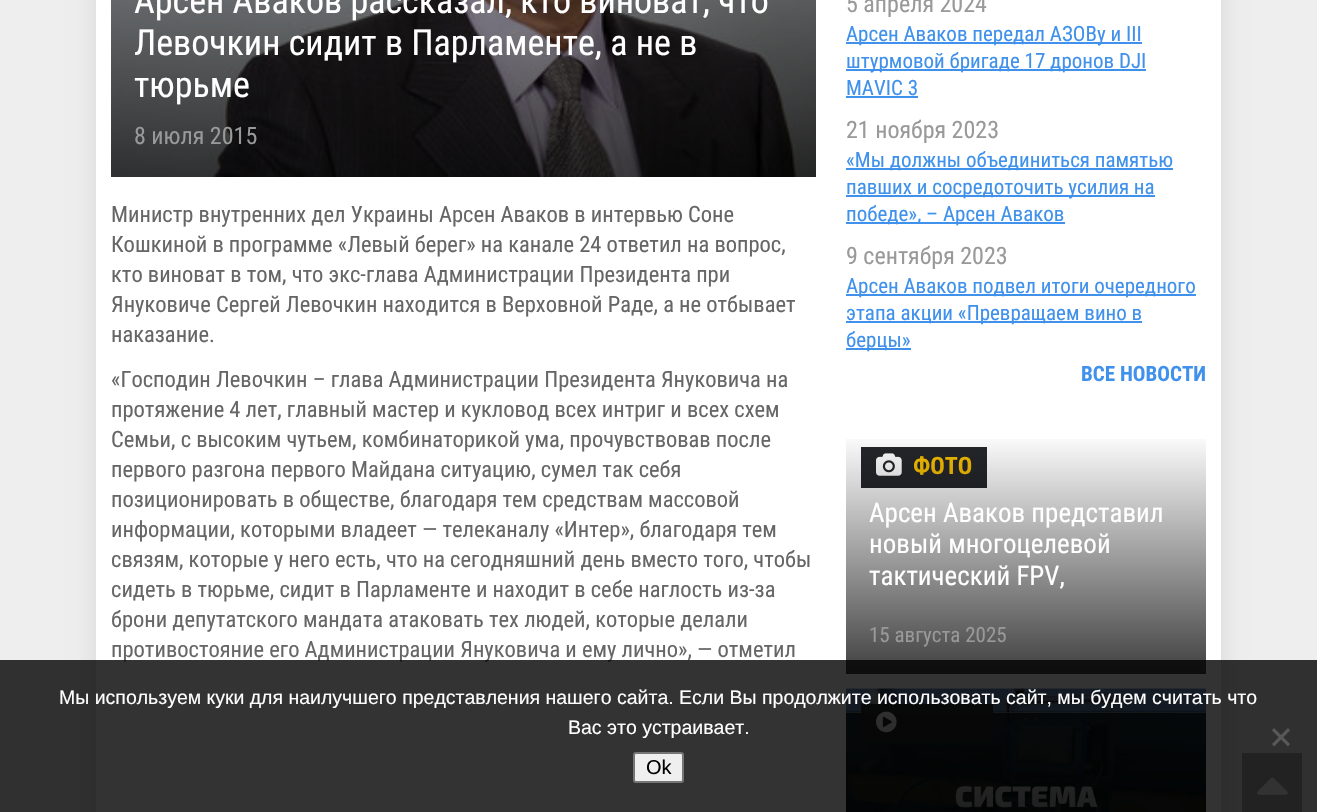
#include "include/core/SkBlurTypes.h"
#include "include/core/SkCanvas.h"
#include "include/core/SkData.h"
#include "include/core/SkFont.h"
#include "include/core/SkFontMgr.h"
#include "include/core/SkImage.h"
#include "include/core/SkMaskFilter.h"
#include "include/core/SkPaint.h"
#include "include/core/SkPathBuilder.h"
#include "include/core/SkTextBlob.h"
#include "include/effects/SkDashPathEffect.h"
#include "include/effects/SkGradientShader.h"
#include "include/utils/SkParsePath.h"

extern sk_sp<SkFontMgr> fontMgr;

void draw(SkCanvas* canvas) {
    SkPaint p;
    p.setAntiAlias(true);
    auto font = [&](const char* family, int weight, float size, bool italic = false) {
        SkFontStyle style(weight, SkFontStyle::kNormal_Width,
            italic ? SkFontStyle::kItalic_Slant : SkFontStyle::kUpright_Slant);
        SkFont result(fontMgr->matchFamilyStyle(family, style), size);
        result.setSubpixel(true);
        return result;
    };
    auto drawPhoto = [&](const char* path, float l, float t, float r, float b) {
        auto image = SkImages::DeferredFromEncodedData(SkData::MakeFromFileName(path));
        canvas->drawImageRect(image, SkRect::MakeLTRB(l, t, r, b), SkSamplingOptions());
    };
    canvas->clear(0xFFEEEEEE);
    p.setColor(0x1A000000);
    p.setMaskFilter(SkMaskFilter::MakeBlur(kNormal_SkBlurStyle, 11));
    canvas->drawRect(SkRect::MakeLTRB(96, -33, 1221, 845), p);
    p.setMaskFilter(nullptr);
    p.setColor(0xFFFFFFFF);
    canvas->drawRect(SkRect::MakeLTRB(96, 0, 1221, 812), p);
    drawPhoto("media/1.png", 111, 0, 816, 177);
    auto font1 = font("Roboto Condensed", 400, 36);
    {
        const struct { const char* s; float x, y; } items[] = {
            {"Арсен Аваков рассказал, кто виноват, что", 134, 13},
            {"Левочкин сидит в Парламенте, а не в", 134, 55},
            {"тюрьме", 134, 97},
        };
        for (auto [s, x, y] : items) {
            canvas->drawString(s, x, y, font1, p);
        }
    }
    auto font2 = font("Roboto Condensed", 400, 24);
    p.setColor(0xFF999999);
    canvas->drawString("8 июля 2015", 134, 144, font2, p);
    auto font3 = font("Roboto Condensed", 400, 22.5f);
    p.setColor(0xFF666666);
    {
        const struct { const char* s; float x, y; } items[] = {
            {"Министр внутренних дел Украины Арсен Аваков в интервью Соне", 111, 222},
            {"Кошкиной в программе «Левый берег» на канале 24 ответил на вопрос,", 111, 252},
            {"кто виноват в том, что экс-глава Администрации Президента при", 111, 282},
            {"Януковиче Сергей Левочкин находится в Верховной Раде, а не отбывает", 111, 312},
            {"наказание.", 111, 342},
            {"«Господин Левочкин – глава Администрации Президента Януковича на", 111, 387},
            {"протяжение 4 лет, главный мастер и кукловод всех интриг и всех схем", 111, 417},
            {"Семьи, с высоким чутьем, комбинаторикой ума, прочувствовав после", 111, 447},
            {"первого разгона первого Майдана ситуацию, сумел так себя", 111, 477},
            {"позиционировать в обществе, благодаря тем средствам массовой", 111, 507},
            {"информации, которыми владеет — телеканалу «Интер», благодаря тем", 111, 537},
            {"связям, которые у него есть, что на сегодняшний день вместо того, чтобы", 111, 567},
            {"сидеть в тюрьме, сидит в Парламенте и находит в себе наглость из-за", 111, 597},
            {"брони депутатского мандата атаковать тех людей, которые делали", 111, 627},
            {"противостояние его Администрации Януковича и ему лично», — отметил", 111, 657},
        };
        for (auto [s, x, y] : items) {
            canvas->drawString(s, x, y, font3, p);
        }
    }
    p.setColor(0xFF999999);
    canvas->drawString("5 апреля 2024", 846, 12, font2, p);
    p.setColor(0xFF3F91EB);
    canvas->drawRect(SkRect::MakeLTRB(846, 42, 1142, 44), p);
    auto font4 = font("Roboto Condensed", 400, 21);
    canvas->drawString("Арсен Аваков передал АЗОВу и III", 846, 41, font4, p);
    canvas->drawRect(SkRect::MakeLTRB(846, 69, 1146, 71), p);
    canvas->drawString("штурмовой бригаде 17 дронов DJI", 846, 68, font4, p);
    canvas->drawString("MAVIC 3", 846, 95, font4, p);
    canvas->drawRect(SkRect::MakeLTRB(846, 96, 918, 98), p);
    p.setColor(0xFF999999);
    canvas->drawString("21 ноября 2023", 846, 138, font2, p);
    p.setColor(0xFF3F91EB);
    canvas->drawRect(SkRect::MakeLTRB(846, 168, 1173, 170), p);
    canvas->drawString("«Мы должны объединиться памятью", 846, 167, font4, p);
    canvas->drawRect(SkRect::MakeLTRB(846, 195, 1155, 197), p);
    canvas->drawString("павших и сосредоточить усилия на", 846, 194, font4, p);
    canvas->drawRect(SkRect::MakeLTRB(846, 222, 1065, 224), p);
    canvas->drawString("победе», – Арсен Аваков", 846, 221, font4, p);
    p.setColor(0xFF999999);
    canvas->drawString("9 сентября 2023", 846, 264, font2, p);
    p.setColor(0xFF3F91EB);
    canvas->drawRect(SkRect::MakeLTRB(846, 294, 1196, 296), p);
    canvas->drawString("Арсен Аваков подвел итоги очередного", 846, 293, font4, p);
    canvas->drawRect(SkRect::MakeLTRB(846, 321, 1142, 323), p);
    canvas->drawString("этапа акции «Превращаем вино в", 846, 320, font4, p);
    canvas->drawRect(SkRect::MakeLTRB(846, 348, 911, 350), p);
    canvas->drawString("берцы»", 846, 347, font4, p);
    auto font5 = font("Roboto Condensed", 700, 21);
    canvas->drawString("ВСЕ НОВОСТИ", 1081, 381, font5, p);
    p.setColor(0xFF24262A);
    canvas->drawRect(SkRect::MakeLTRB(861, 447, 987, 488), p);
    drawPhoto("media/2.png", 876, 453, 902, 476);
    auto font6 = font("Roboto Condensed", 700, 24);
    p.setColor(0xFFF8BF00);
    canvas->drawString("ФОТО", 913, 474, font6, p);
    {
        const SkColor colors[] = {0x00000000, 0xBF000000};
        const float stops[] = {0, 1};
        const SkPoint ends[] = {{1026, 432}, {1026, 674}};
        p.setShader(SkGradientShader::MakeLinear(ends, colors, stops, 2, SkTileMode::kClamp));
        p.setAlpha(255);
    }
    canvas->drawRect(SkRect::MakeLTRB(846, 439, 1206, 674), p);
    auto font7 = font("Roboto Condensed", 400, 27);
    p.setShader(nullptr);
    p.setColor(0xFFFFFFFF);
    {
        const struct { const char* s; float x, y; } items[] = {
            {"Арсен Аваков представил", 869, 522},
            {"новый многоцелевой", 869, 553},
            {"тактический FPV,", 869, 585},
        };
        for (auto [s, x, y] : items) {
            canvas->drawString(s, x, y, font7, p);
        }
    }
    p.setColor(0xFF999999);
    canvas->drawString("15 августа 2025", 869, 642, font4, p);
    drawPhoto("media/3.png", 846, 688, 1206, 812);
    p.setColor(0xFF24262A);
    canvas->drawRect(SkRect::MakeLTRB(861, 704, 993, 744), p);
    drawPhoto("media/4.png", 876, 711, 897, 733);
    {
        const SkColor colors[] = {0x00000000, 0xBF000000};
        const float stops[] = {0, 1};
        const SkPoint ends[] = {{1026, 689}, {1026, 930}};
        p.setShader(SkGradientShader::MakeLinear(ends, colors, stops, 2, SkTileMode::kClamp));
        p.setAlpha(255);
    }
    canvas->drawRect(SkRect::MakeLTRB(846, 696, 1206, 812), p);
    p.setShader(nullptr);
    p.setColor(0xFFA7A7A7);
    canvas->drawRect(SkRect::MakeLTRB(1242, 753, 1302, 812), p);
    drawPhoto("media/5.png", 1257, 777, 1288, 795);
    p.setColor(0xCC000000);
    canvas->drawRect(SkRect::MakeLTRB(0, 660, 1317, 812), p);
    auto font8 = font("Liberation Sans", 400, 19.5f);
    p.setColor(0xFFFFFFFF);
    canvas->drawString("Мы используем куки для наилучшего представления нашего сайта. Если Вы продолжите использовать сайт, мы будем считать что", 59, 704, font8, p);
    canvas->drawString("Вас это устраивает.", 568, 734, font8, p);
    p.setColor(0xFF585858);
    canvas->drawPath(SkPathBuilder().moveTo(1288, 728).lineTo(1290, 730.5f).lineTo(1274, 746.5f).lineTo(1272, 744).close().detach(), p);
    canvas->drawPath(SkPathBuilder().moveTo(1272, 730.5f).lineTo(1274, 728).lineTo(1290, 744).lineTo(1288, 746.5f).close().detach(), p);
    p.setColor(0xFFEFEFEF);
    canvas->drawRoundRect(SkRect::MakeLTRB(634, 753, 683, 782), 2, 2, p);
    p.setStyle(SkPaint::kStroke_Style);
    p.setStrokeWidth(2);
    p.setColor(0xFF767676);
    canvas->drawRoundRect(SkRect::MakeLTRB(634, 753, 683, 782), 2, 2, p);
    auto font9 = font("Liberation Sans", 400, 20);
    p.setStyle(SkPaint::kFill_Style);
    p.setColor(0xFF000000);
    canvas->drawString("Ok", 646, 774, font9, p);
}
